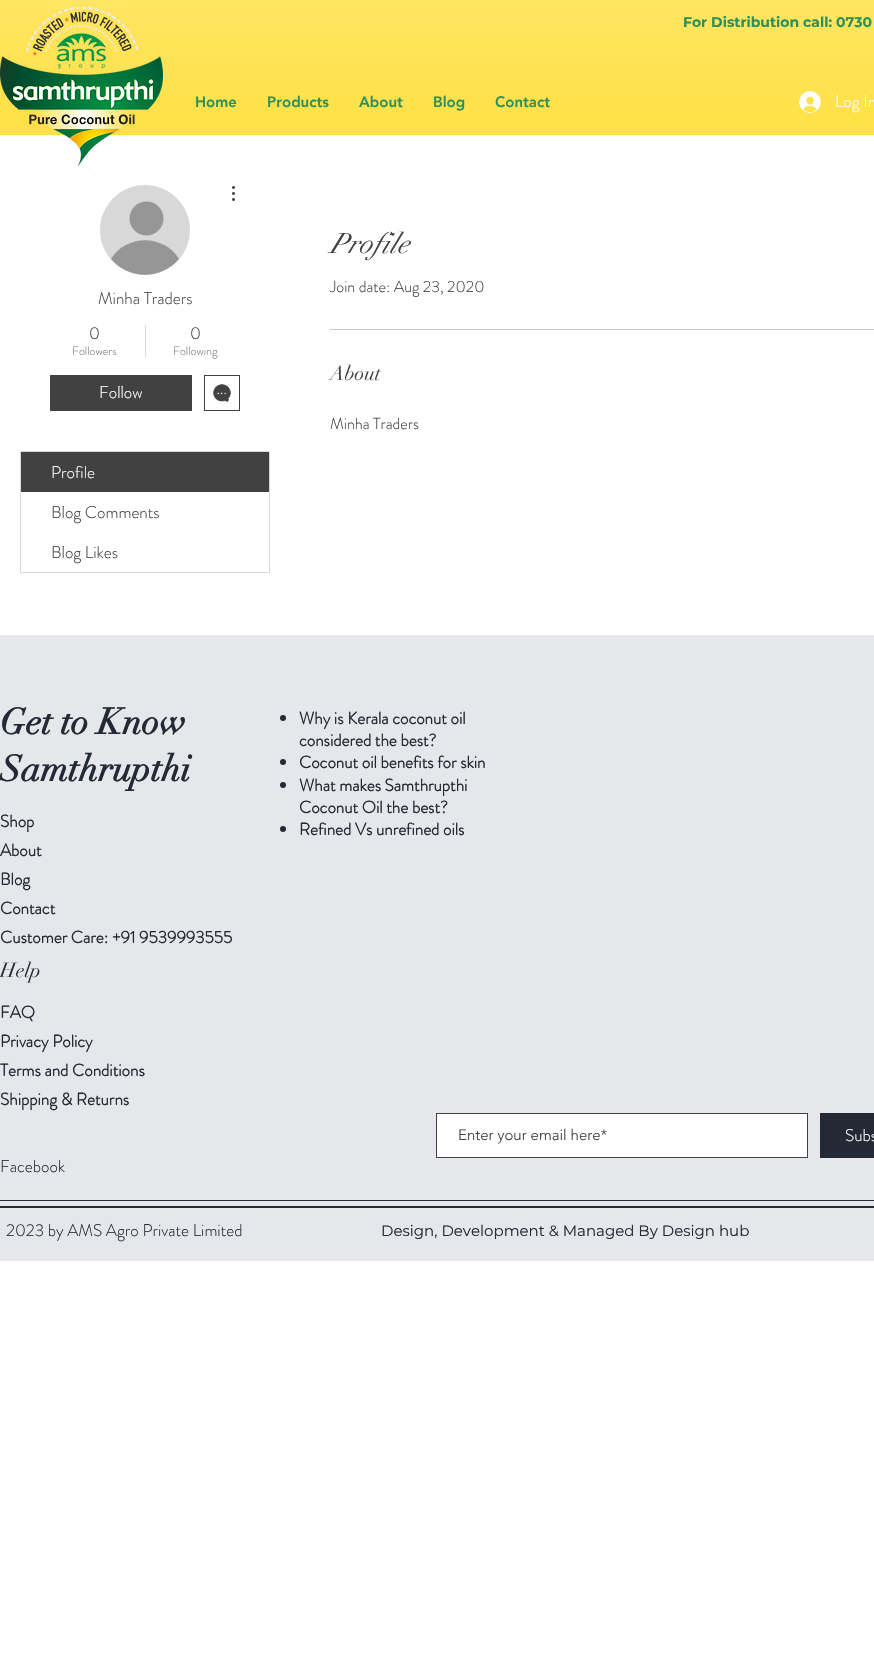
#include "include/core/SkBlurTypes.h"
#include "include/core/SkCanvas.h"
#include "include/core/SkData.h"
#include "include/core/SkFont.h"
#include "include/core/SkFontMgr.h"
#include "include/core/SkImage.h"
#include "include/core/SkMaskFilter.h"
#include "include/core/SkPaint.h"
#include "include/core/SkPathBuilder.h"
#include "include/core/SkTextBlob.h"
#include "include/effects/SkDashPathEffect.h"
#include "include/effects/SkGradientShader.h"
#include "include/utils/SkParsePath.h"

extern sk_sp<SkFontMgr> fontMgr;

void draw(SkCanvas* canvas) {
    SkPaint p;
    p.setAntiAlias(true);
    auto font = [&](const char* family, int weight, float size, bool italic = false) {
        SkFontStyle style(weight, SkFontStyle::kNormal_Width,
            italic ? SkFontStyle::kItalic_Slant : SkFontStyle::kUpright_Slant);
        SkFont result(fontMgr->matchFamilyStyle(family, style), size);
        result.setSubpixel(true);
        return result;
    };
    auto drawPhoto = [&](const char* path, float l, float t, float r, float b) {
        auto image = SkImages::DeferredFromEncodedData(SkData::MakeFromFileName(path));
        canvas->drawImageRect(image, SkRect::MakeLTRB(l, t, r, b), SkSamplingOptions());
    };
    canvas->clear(0xFFFFFFFF);
    p.setColor(0xFFFFDC2B);
    canvas->drawRect(SkRect::MakeLTRB(0, 0, 874, 135), p);
    drawPhoto("media/1.png", 0, 0, 874, 135);
    drawPhoto("media/2.png", 0, 7, 163, 166);
    auto font1 = font("Montserrat", 700, 14);
    p.setColor(0xFF2F8F5A);
    canvas->drawString("For Distribution call: 0730", 683, 27, font1, p);
    auto font2 = font("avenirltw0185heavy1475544", 900, 15);
    {
        const struct { const char* s; float x, y; } items[] = {
            {"Home", 195, 107},
            {"Products", 267, 107},
            {"About", 359, 107},
            {"Blog", 433, 107},
            {"Contact", 495, 107},
        };
        for (auto [s, x, y] : items) {
            canvas->drawString(s, x, y, font2, p);
        }
    }
    drawPhoto("media/3.png", 799, 91, 821, 113);
    auto font3 = font("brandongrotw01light", 300, 17);
    p.setColor(0xFFFFFFFF);
    canvas->drawString("Log In", 835, 107, font3, p);
    p.setColor(0xFFD8D8D8);
    canvas->drawCircle(145, 230, 45, p);
    p.setColor(0xFF969696);
    canvas->drawCircle(146.5f, 218.5f, 17, p);
    canvas->drawPath(SkPathBuilder().moveTo(179, 259).cubicTo(161, 280, 129, 280, 111, 259).cubicTo(126, 234, 164, 234, 179, 259).close().detach(), p);
    drawPhoto("media/4.png", 232, 186, 235, 201);
    p.setColor(0xFF414141);
    canvas->drawString("Minha Traders", 98, 304, font3, p);
    canvas->drawString("0", 89, 339, font3, p);
    auto font4 = font("brandongrotw01light", 300, 12);
    p.setColor(0xFF7A7A7A);
    canvas->drawString("Followers", 72, 355, font4, p);
    p.setColor(0xFFD9D9D9);
    canvas->drawRect(SkRect::MakeLTRB(145, 325, 146, 357), p);
    p.setColor(0xFF414141);
    canvas->drawString("0", 190, 339, font3, p);
    p.setColor(0xFF7A7A7A);
    canvas->drawString("Following", 173, 355, font4, p);
    p.setColor(0xFF414141);
    canvas->drawRect(SkRect::MakeLTRB(50, 375, 192, 411), p);
    p.setColor(0xFFFFFFFF);
    canvas->drawString("Follow", 99, 398, font3, p);
    p.setStyle(SkPaint::kStroke_Style);
    p.setStrokeWidth(1);
    p.setColor(0xFF414141);
    canvas->drawRect(SkRect::MakeLTRB(204.5f, 375.5f, 239.5f, 410.5f), p);
    drawPhoto("media/5.png", 213, 384, 231, 402);
    p.setColor(0xFFD9D9D9);
    canvas->drawRect(SkRect::MakeLTRB(20.5f, 451.5f, 269.5f, 572.5f), p);
    p.setStyle(SkPaint::kFill_Style);
    p.setColor(0xFF414141);
    canvas->drawRect(SkRect::MakeLTRB(21, 452, 269, 492), p);
    p.setColor(0xFFFFFFFF);
    canvas->drawString("Profile", 51, 478, font3, p);
    p.setColor(0xFF414141);
    canvas->drawString("Blog Comments", 51, 518, font3, p);
    canvas->drawString("Blog Likes", 51, 558, font3, p);
    auto font5 = font("didot", 400, 28, true);
    canvas->drawString("Profile", 330, 253, font5, p);
    auto font6 = font("brandongrotw01light", 300, 16);
    canvas->drawString("Join date: Aug 23, 2020", 330, 292, font6, p);
    p.setColor(0xFFC6C6C6);
    canvas->drawRect(SkRect::MakeLTRB(330, 329, 874, 330), p);
    auto font7 = font("didot", 400, 20);
    p.setColor(0xFF414141);
    canvas->drawString("About", 330, 380, font7, p);
    canvas->drawString("Minha Traders", 330, 429, font6, p);
    p.setColor(0xFFE6E7EA);
    canvas->drawRect(SkRect::MakeLTRB(0, 635, 874, 1261), p);
    auto font8 = font("didot", 700, 36);
    p.setColor(0xFF242A35);
    canvas->drawString("Get to Know", 0, 734, font8, p);
    canvas->drawString("Samthrupthi", 0, 781, font8, p);
    canvas->drawCircle(283, 718, 3, p);
    auto font9 = font("brandongrotw01light", 700, 17);
    canvas->drawString("Why is Kerala coconut oil", 299, 724, font9, p);
    canvas->drawString("considered the best?", 299, 746, font9, p);
    canvas->drawCircle(283, 762, 3, p);
    canvas->drawString("Coconut oil benefits for skin", 299, 768, font9, p);
    canvas->drawCircle(283, 785, 3, p);
    canvas->drawString("What makes Samthrupthi", 299, 791, font9, p);
    canvas->drawString("Coconut Oil the best?", 299, 813, font9, p);
    canvas->drawCircle(283, 829, 3, p);
    {
        const struct { const char* s; float x, y; } items[] = {
            {"Refined Vs unrefined oils", 299, 835},
            {"Shop", 0, 827},
            {"About", 0, 856},
            {"Blog", 0, 885},
            {"Contact", 0, 914},
            {"Customer Care: +91 9539993555", 0, 943},
        };
        for (auto [s, x, y] : items) {
            canvas->drawString(s, x, y, font9, p);
        }
    }
    canvas->drawString("Help", 0, 977, font7, p);
    {
        const struct { const char* s; float x, y; } items[] = {
            {"FAQ", 0, 1018},
            {"Privacy Policy", 0, 1047},
            {"Terms and Conditions", 0, 1076},
            {"Shipping & Returns", 0, 1105},
        };
        for (auto [s, x, y] : items) {
            canvas->drawString(s, x, y, font9, p);
        }
    }
    p.setColor(0xFFFFFFFF);
    canvas->drawRect(SkRect::MakeLTRB(436.5f, 1113.5f, 807.5f, 1157.5f), p);
    p.setStyle(SkPaint::kStroke_Style);
    p.setColor(0xFF414141);
    canvas->drawRect(SkRect::MakeLTRB(436.5f, 1113.5f, 807.5f, 1157.5f), p);
    auto font10 = font("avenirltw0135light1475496", 300, 15);
    p.setStyle(SkPaint::kFill_Style);
    canvas->drawString("Enter your email here*", 458, 1140, font10, p);
    p.setColor(0xFF242A35);
    canvas->drawRect(SkRect::MakeLTRB(820, 1113, 874, 1158), p);
    p.setColor(0xFFFFFFFF);
    canvas->drawString("Subs", 845, 1141, font3, p);
    p.setColor(0xFF242A35);
    canvas->drawString("Facebook", 0, 1172, font3, p);
    canvas->drawRect(SkRect::MakeLTRB(0, 1200, 874, 1201), p);
    canvas->drawRect(SkRect::MakeLTRB(0, 1206, 874, 1208), p);
    canvas->drawString("2023 by AMS Agro Private Limited", 6, 1236, font3, p);
    auto font11 = font("Montserrat", 400, 15);
    canvas->drawString("Design, Development & Managed By Design hub", 381, 1236, font11, p);
}
